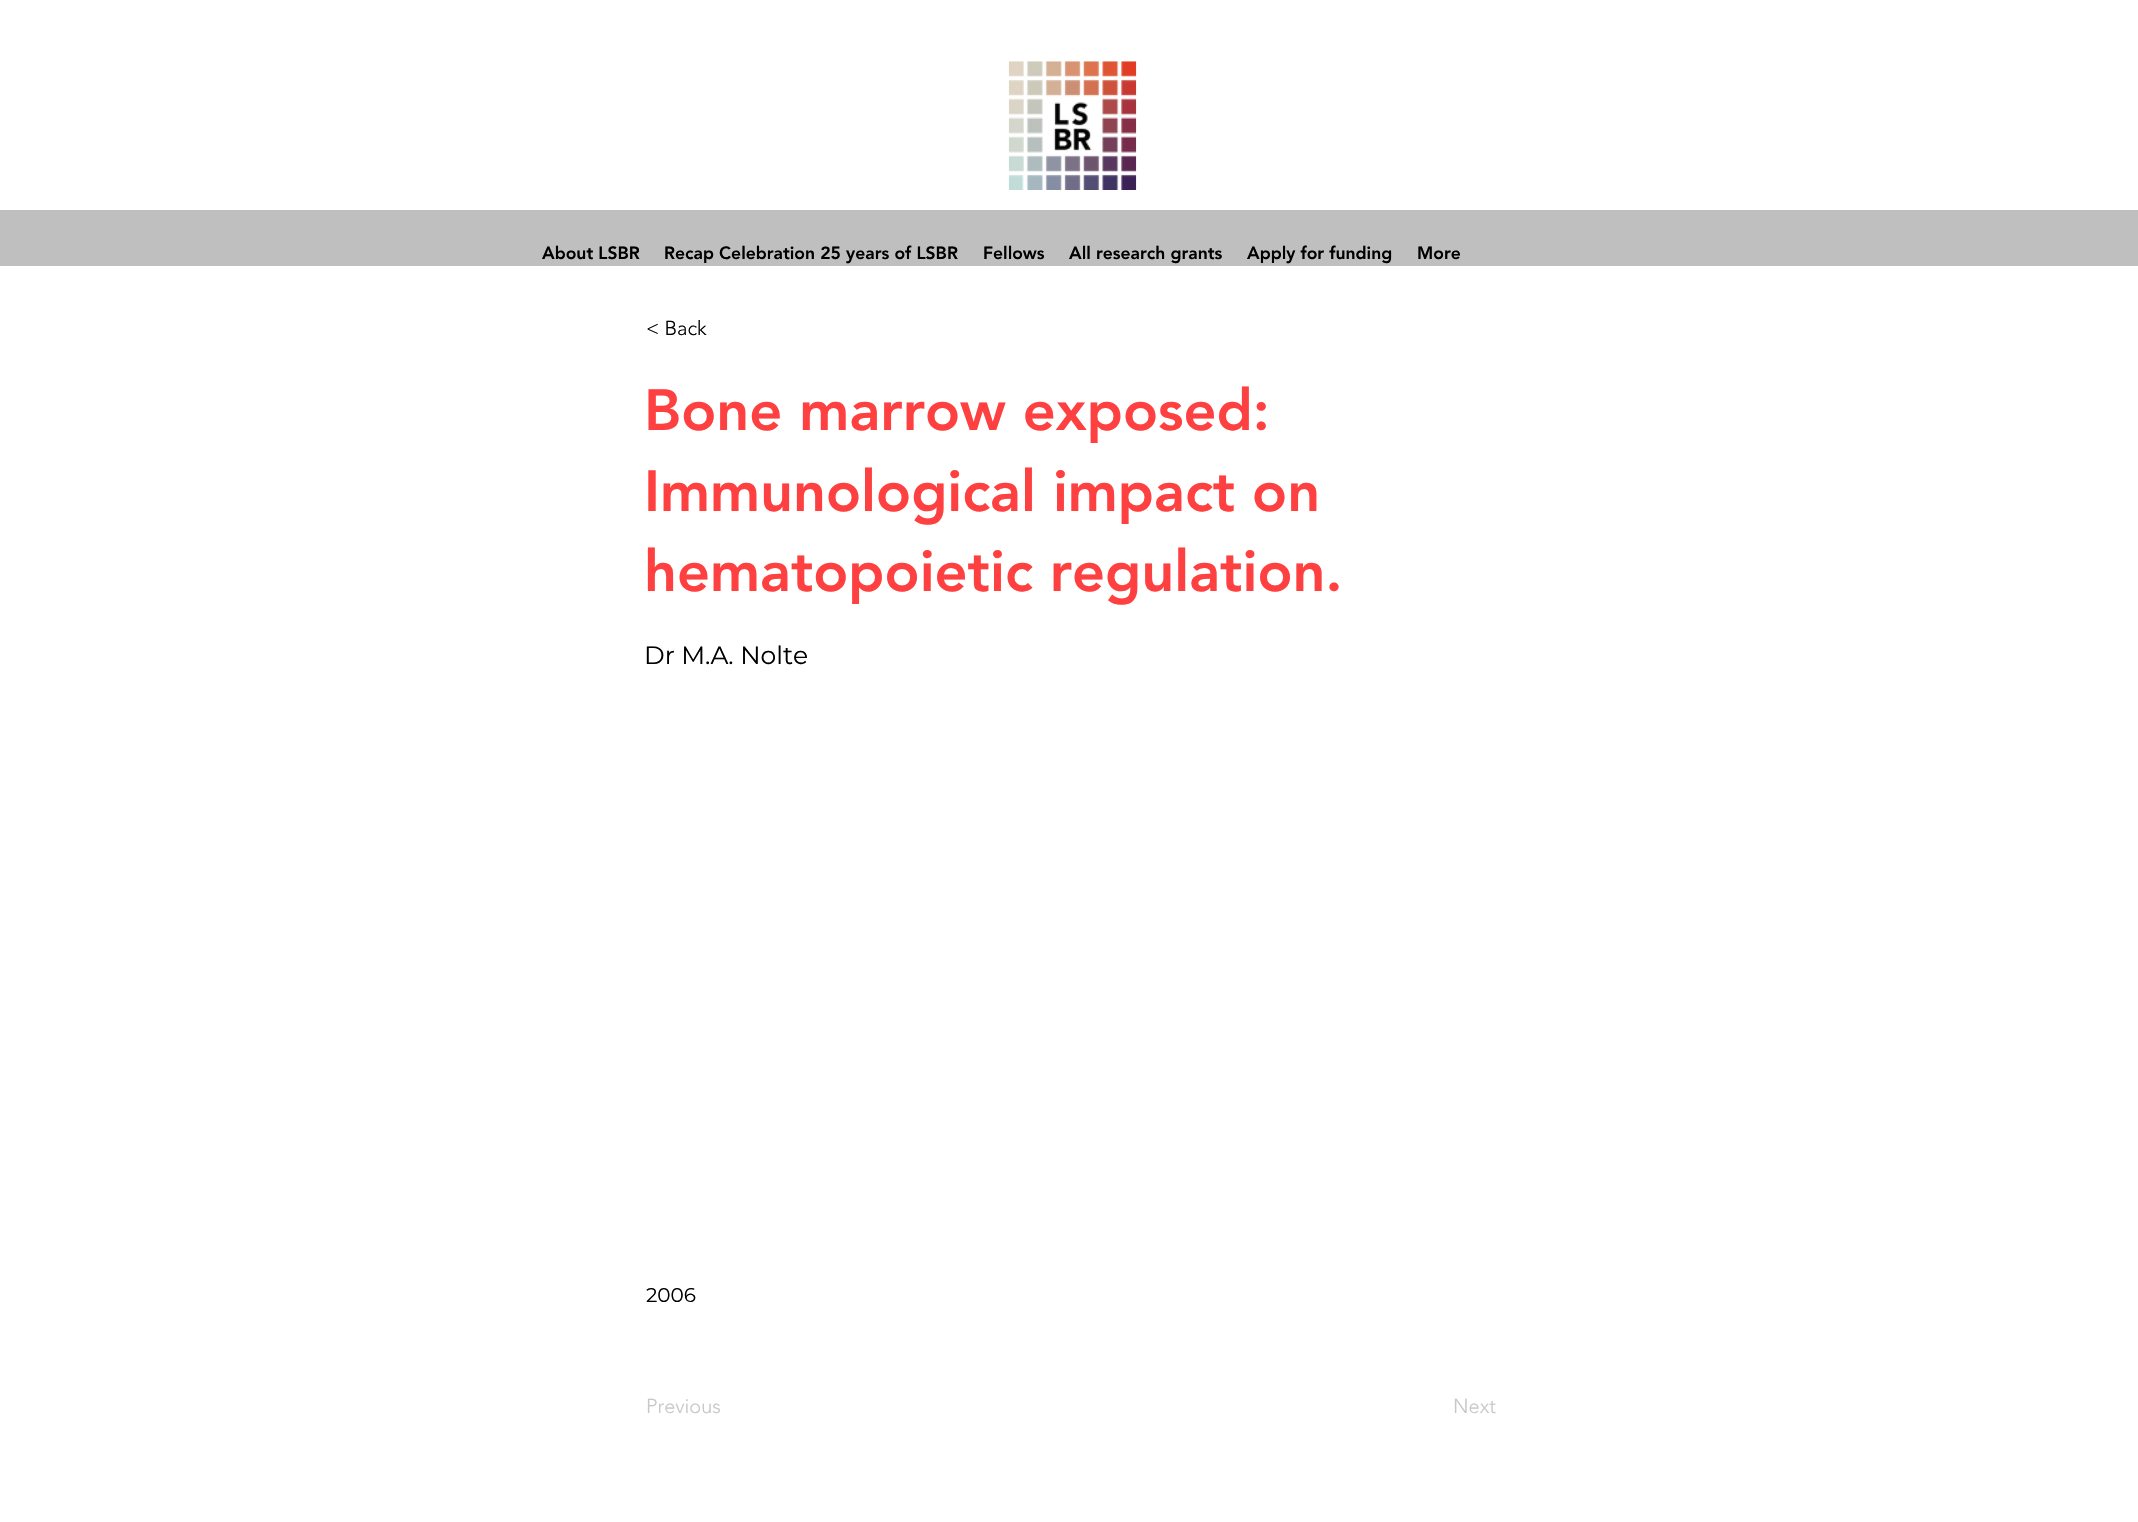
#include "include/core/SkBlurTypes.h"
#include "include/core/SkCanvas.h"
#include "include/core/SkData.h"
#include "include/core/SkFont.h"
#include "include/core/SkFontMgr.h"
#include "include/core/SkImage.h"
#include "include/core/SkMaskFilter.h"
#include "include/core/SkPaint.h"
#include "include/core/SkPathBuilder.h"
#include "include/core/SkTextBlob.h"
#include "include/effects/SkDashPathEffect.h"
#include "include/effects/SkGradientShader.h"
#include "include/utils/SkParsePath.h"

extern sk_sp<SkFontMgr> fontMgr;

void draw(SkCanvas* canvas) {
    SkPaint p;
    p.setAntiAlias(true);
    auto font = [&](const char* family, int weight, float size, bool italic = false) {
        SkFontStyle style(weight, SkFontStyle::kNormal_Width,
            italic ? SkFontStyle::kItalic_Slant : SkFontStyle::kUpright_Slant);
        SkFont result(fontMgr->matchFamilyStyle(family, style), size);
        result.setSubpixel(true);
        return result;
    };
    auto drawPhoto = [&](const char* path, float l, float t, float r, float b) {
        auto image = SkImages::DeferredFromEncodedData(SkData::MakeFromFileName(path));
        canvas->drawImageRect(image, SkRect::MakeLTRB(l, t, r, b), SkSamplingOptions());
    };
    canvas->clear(0xFFFFFFFF);
    drawPhoto("media/1.png", 1008, 61, 1137, 190);
    p.setColor(0xFFBFBFBF);
    canvas->drawRect(SkRect::MakeLTRB(0, 210, 2138, 266), p);
    auto font1 = font("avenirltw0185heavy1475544", 900, 17.5f);
    p.setColor(0xFF000000);
    {
        const struct { const char* s; float x, y; } items[] = {
            {"About LSBR", 542, 259},
            {"Recap Celebration 25 years of LSBR", 664, 259},
            {"Fellows", 983, 259},
            {"All research grants", 1069, 259},
            {"Apply for funding", 1247, 259},
            {"More", 1417, 259},
        };
        for (auto [s, x, y] : items) {
            canvas->drawString(s, x, y, font1, p);
        }
    }
    auto font2 = font("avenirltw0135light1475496", 300, 20);
    canvas->drawString("< Back", 646, 335, font2, p);
    auto font3 = font("avenirltw0185heavy1475544", 900, 57.5f);
    p.setColor(0xFFFF4040);
    {
        const struct { const char* s; float x, y; } items[] = {
            {"Bone marrow exposed:", 644, 430},
            {"Immunological impact on", 644, 511},
            {"hematopoietic regulation.", 644, 591},
        };
        for (auto [s, x, y] : items) {
            canvas->drawString(s, x, y, font3, p);
        }
    }
    auto font4 = font("Montserrat", 400, 25);
    p.setColor(0xFF000000);
    canvas->drawString("Dr M.A. Nolte", 644, 664, font4, p);
    auto font5 = font("Montserrat", 400, 20);
    canvas->drawString("2006", 646, 1302, font5, p);
    p.setColor(0xFFC7C7C7);
    canvas->drawString("Previous", 646, 1413, font2, p);
    canvas->drawString("Next", 1453, 1413, font2, p);
}
